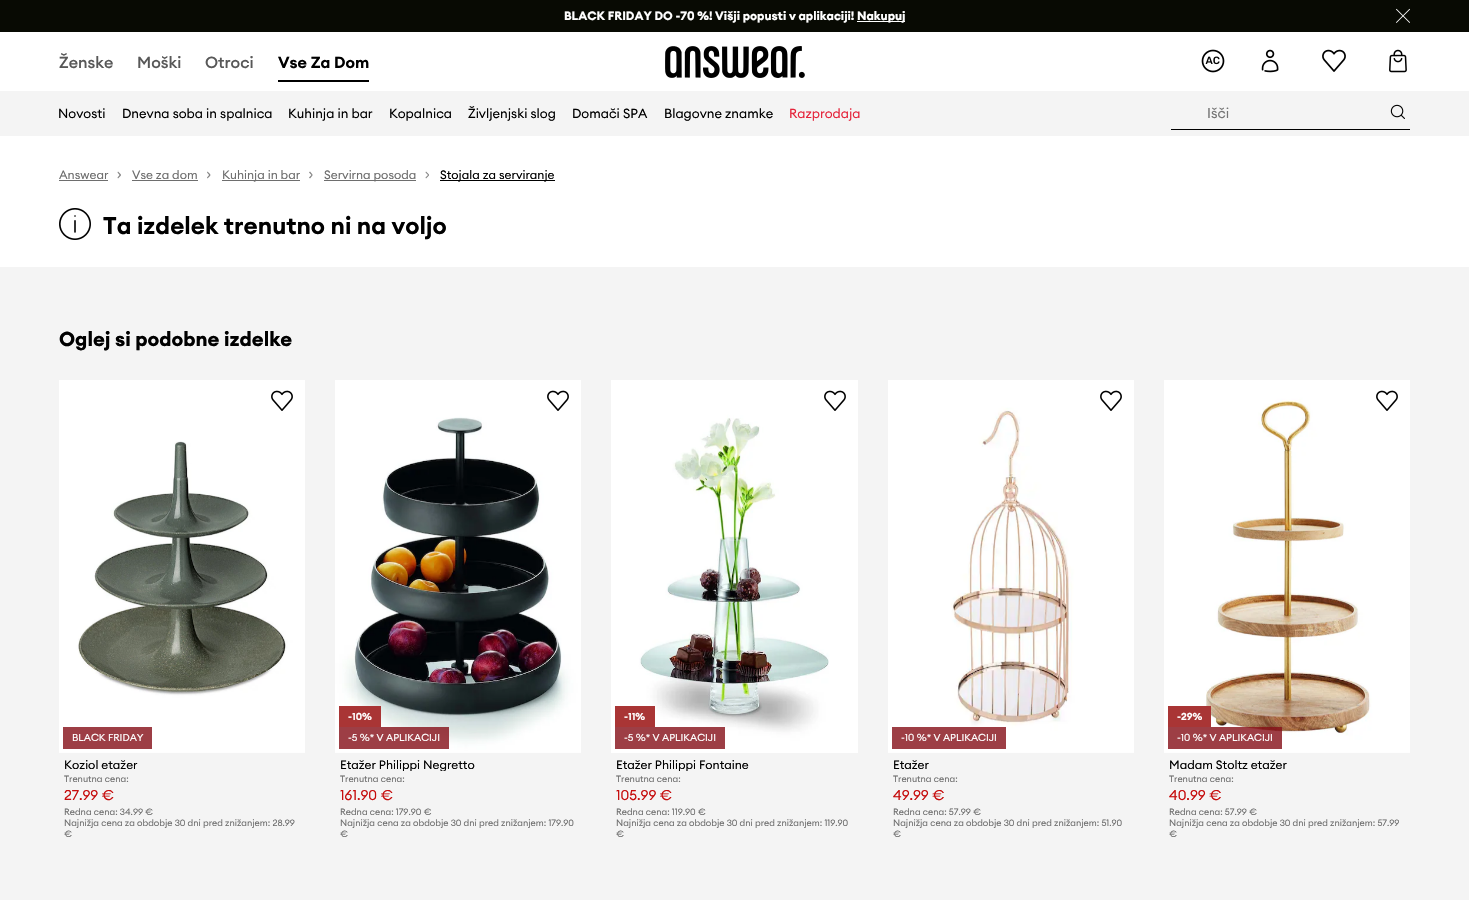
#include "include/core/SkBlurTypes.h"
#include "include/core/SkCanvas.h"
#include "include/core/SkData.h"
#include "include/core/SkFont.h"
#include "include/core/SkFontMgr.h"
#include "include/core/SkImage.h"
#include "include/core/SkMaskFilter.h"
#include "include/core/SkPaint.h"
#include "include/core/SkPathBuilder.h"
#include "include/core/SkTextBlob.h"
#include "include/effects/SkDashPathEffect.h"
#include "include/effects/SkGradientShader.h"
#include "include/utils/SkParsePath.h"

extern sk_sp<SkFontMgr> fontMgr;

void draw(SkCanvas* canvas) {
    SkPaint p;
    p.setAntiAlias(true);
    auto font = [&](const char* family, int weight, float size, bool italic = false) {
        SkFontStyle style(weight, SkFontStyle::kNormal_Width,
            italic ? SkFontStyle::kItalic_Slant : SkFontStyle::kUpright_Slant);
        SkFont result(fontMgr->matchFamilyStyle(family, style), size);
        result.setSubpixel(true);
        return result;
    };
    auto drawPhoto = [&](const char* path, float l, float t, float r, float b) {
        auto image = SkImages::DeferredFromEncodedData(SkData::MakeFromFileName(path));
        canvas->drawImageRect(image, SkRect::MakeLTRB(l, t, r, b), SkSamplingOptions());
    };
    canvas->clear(0xFFFFFFFF);
    p.setColor(0xFF080A03);
    canvas->drawRect(SkRect::MakeLTRB(0, 0, 1469, 32), p);
    auto font1 = font("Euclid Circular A", 700, 12);
    p.setColor(0xFFFFFFFF);
    canvas->drawString("BLACK FRIDAY DO -70 %! Višji popusti v aplikaciji!", 564, 20, font1, p);
    canvas->drawRect(SkRect::MakeLTRB(857, 21, 905, 22), p);
    canvas->drawString("Nakupuj", 857, 20, font1, p);
    drawPhoto("media/1.png", 1396, 8, 1410, 23);
    auto font2 = font("Euclid Circular A", 500, 16);
    p.setColor(0xFF585858);
    {
        const struct { const char* s; float x, y; } items[] = {
            {"Ženske", 59, 68},
            {"Moški", 137, 68},
            {"Otroci", 205, 68},
        };
        for (auto [s, x, y] : items) {
            canvas->drawString(s, x, y, font2, p);
        }
    }
    auto font3 = font("Euclid Circular A", 600, 16);
    p.setColor(0xFF000000);
    canvas->drawString("Vse Za Dom", 278, 68, font3, p);
    canvas->drawRect(SkRect::MakeLTRB(278, 80, 369, 82), p);
    drawPhoto("media/2.png", 665, 46, 805, 78);
    drawPhoto("media/3.png", 1201, 49, 1225, 73);
    drawPhoto("media/4.png", 1261, 49, 1279, 73);
    drawPhoto("media/5.png", 1322, 49, 1346, 72);
    drawPhoto("media/6.png", 1389, 49, 1407, 73);
    p.setColor(0xFFF4F4F4);
    canvas->drawRect(SkRect::MakeLTRB(0, 91, 1469, 136), p);
    auto font4 = font("Euclid Circular A", 400, 13);
    p.setColor(0xFF000000);
    {
        const struct { const char* s; float x, y; } items[] = {
            {"Novosti", 58, 118},
            {"Dnevna soba in spalnica", 122, 118},
            {"Kuhinja in bar", 288, 118},
            {"Kopalnica", 389, 118},
            {"Življenjski slog", 468, 118},
            {"Domači SPA", 572, 118},
            {"Blagovne znamke", 664, 118},
        };
        for (auto [s, x, y] : items) {
            canvas->drawString(s, x, y, font4, p);
        }
    }
    p.setColor(0xFFE5233A);
    canvas->drawString("Razprodaja", 789, 118, font4, p);
    p.setColor(0xFF000000);
    canvas->drawRect(SkRect::MakeLTRB(1171, 129, 1410, 130), p);
    auto font5 = font("Euclid Circular A", 400, 14);
    p.setColor(0xFF757575);
    canvas->drawString("Išči", 1207, 118, font5, p);
    drawPhoto("media/7.png", 1390, 104, 1405, 119);
    auto font6 = font("Euclid Circular A", 400, 12);
    p.setColor(0xFF6E6E6E);
    canvas->drawString("Answear", 59, 179, font6, p);
    canvas->drawRect(SkRect::MakeLTRB(59, 180, 108, 181), p);
    p.setColor(0xFF848484);
    canvas->drawPath(SkPathBuilder().moveTo(117.5f, 177.5f).lineTo(120, 174.5f).lineTo(121, 175.5f).lineTo(118, 178.5f).close().detach(), p);
    canvas->drawPath(SkPathBuilder().moveTo(118, 171.5f).lineTo(121, 174.5f).lineTo(120, 175.5f).lineTo(117.5f, 172.5f).close().detach(), p);
    p.setColor(0xFF6E6E6E);
    canvas->drawString("Vse za dom", 132, 179, font6, p);
    canvas->drawRect(SkRect::MakeLTRB(132, 180, 198, 181), p);
    p.setColor(0xFF848484);
    canvas->drawPath(SkPathBuilder().moveTo(207, 177.5f).lineTo(209.5f, 174.5f).lineTo(210.5f, 175.5f).lineTo(207.5f, 178.5f).close().detach(), p);
    canvas->drawPath(SkPathBuilder().moveTo(207.5f, 171.5f).lineTo(210.5f, 174.5f).lineTo(209.5f, 175.5f).lineTo(207, 172.5f).close().detach(), p);
    p.setColor(0xFF6E6E6E);
    canvas->drawRect(SkRect::MakeLTRB(222, 180, 300, 181), p);
    canvas->drawString("Kuhinja in bar", 222, 179, font6, p);
    p.setColor(0xFF848484);
    canvas->drawPath(SkPathBuilder().moveTo(309, 177.5f).lineTo(312, 174.5f).lineTo(312.5f, 175.5f).lineTo(310, 178.5f).close().detach(), p);
    canvas->drawPath(SkPathBuilder().moveTo(310, 171.5f).lineTo(312.5f, 174.5f).lineTo(312, 175.5f).lineTo(309, 172.5f).close().detach(), p);
    p.setColor(0xFF6E6E6E);
    canvas->drawRect(SkRect::MakeLTRB(324, 180, 416, 181), p);
    canvas->drawString("Servirna posoda", 324, 179, font6, p);
    p.setColor(0xFF848484);
    canvas->drawPath(SkPathBuilder().moveTo(425.5f, 177.5f).lineTo(428.5f, 174.5f).lineTo(429, 175.5f).lineTo(426, 178.5f).close().detach(), p);
    canvas->drawPath(SkPathBuilder().moveTo(426, 171.5f).lineTo(429, 174.5f).lineTo(428.5f, 175.5f).lineTo(425.5f, 172.5f).close().detach(), p);
    p.setColor(0xFF000000);
    canvas->drawRect(SkRect::MakeLTRB(440, 180, 555, 181), p);
    canvas->drawString("Stojala za serviranje", 440, 179, font6, p);
    drawPhoto("media/8.png", 59, 208, 91, 240);
    auto font7 = font("Euclid Circular A", 600, 24);
    canvas->drawString("Ta izdelek trenutno ni na voljo", 103, 234, font7, p);
    p.setColor(0xFFF4F4F4);
    canvas->drawRect(SkRect::MakeLTRB(0, 267, 1469, 900), p);
    auto font8 = font("Euclid Circular A", 700, 20);
    p.setColor(0xFF000000);
    canvas->drawString("Oglej si podobne izdelke", 59, 346, font8, p);
    drawPhoto("media/9.png", 59, 380, 305, 753);
    drawPhoto("media/10.png", 271, 390, 293, 411);
    p.setColor(0xFF9D3E45);
    canvas->drawRect(SkRect::MakeLTRB(63, 727, 152, 749), p);
    auto font9 = font("Euclid Circular A", 400, 10);
    p.setColor(0xFFFFFFFF);
    canvas->drawString("BLACK FRIDAY", 72, 741, font9, p);
    p.setColor(0xFF000000);
    canvas->drawString("Koziol etažer", 64, 769, font6, p);
    auto font10 = font("Euclid Circular A", 400, 9);
    p.setColor(0xFF6E6E6E);
    canvas->drawString("Trenutna cena:", 64, 782, font10, p);
    p.setColor(0xFFC60C0C);
    canvas->drawString("27.99 €", 64, 800, font5, p);
    p.setColor(0xFF6E6E6E);
    {
        const struct { const char* s; float x, y; } items[] = {
            {"Redna cena: 34.99 €", 64, 815},
            {"Najnižja cena za obdobje 30 dni pred znižanjem: 28.99", 64, 826},
            {"€", 64, 837},
        };
        for (auto [s, x, y] : items) {
            canvas->drawString(s, x, y, font10, p);
        }
    }
    drawPhoto("media/11.png", 335, 380, 581, 753);
    drawPhoto("media/10.png", 547, 390, 569, 411);
    p.setColor(0xFFA93535);
    canvas->drawRect(SkRect::MakeLTRB(339, 706, 381, 727), p);
    auto font11 = font("Euclid Circular A", 600, 10);
    p.setColor(0xFFFFFFFF);
    canvas->drawString("-10%", 348, 720, font11, p);
    p.setColor(0xCC840E16);
    canvas->drawRect(SkRect::MakeLTRB(339, 727, 449, 749), p);
    p.setColor(0xFFFFFFFF);
    canvas->drawString("-5 %* V APLIKACIJI", 348, 741, font9, p);
    canvas->save();
    canvas->clipRect(SkRect::MakeLTRB(340, 758, 576, 771));
    p.setColor(0xFF000000);
    canvas->drawString("Etažer Philippi Negretto", 340, 769, font6, p);
    canvas->restore();
    p.setColor(0xFF6E6E6E);
    canvas->drawString("Trenutna cena:", 340, 782, font10, p);
    p.setColor(0xFFC60C0C);
    canvas->drawString("161.90 €", 340, 800, font5, p);
    p.setColor(0xFF6E6E6E);
    {
        const struct { const char* s; float x, y; } items[] = {
            {"Redna cena: 179.90 €", 340, 815},
            {"Najnižja cena za obdobje 30 dni pred znižanjem: 179.90", 340, 826},
            {"€", 340, 837},
        };
        for (auto [s, x, y] : items) {
            canvas->drawString(s, x, y, font10, p);
        }
    }
    drawPhoto("media/12.png", 611, 380, 858, 753);
    drawPhoto("media/10.png", 824, 390, 846, 411);
    p.setColor(0xFFA93535);
    canvas->drawRect(SkRect::MakeLTRB(615, 706, 655, 727), p);
    p.setColor(0xFFFFFFFF);
    canvas->drawString("-11%", 624, 720, font11, p);
    p.setColor(0xFF9D3E45);
    canvas->drawRect(SkRect::MakeLTRB(615, 727, 725, 749), p);
    p.setColor(0xFFFFFFFF);
    canvas->drawString("-5 %* V APLIKACIJI", 624, 741, font9, p);
    canvas->save();
    canvas->clipRect(SkRect::MakeLTRB(616, 758, 853, 771));
    p.setColor(0xFF000000);
    canvas->drawString("Etažer Philippi Fontaine", 616, 769, font6, p);
    canvas->restore();
    p.setColor(0xFF6E6E6E);
    canvas->drawString("Trenutna cena:", 616, 782, font10, p);
    p.setColor(0xFFC60C0C);
    canvas->drawString("105.99 €", 616, 800, font5, p);
    p.setColor(0xFF6E6E6E);
    {
        const struct { const char* s; float x, y; } items[] = {
            {"Redna cena: 119.90 €", 616, 815},
            {"Najnižja cena za obdobje 30 dni pred znižanjem: 119.90", 616, 826},
            {"€", 616, 837},
        };
        for (auto [s, x, y] : items) {
            canvas->drawString(s, x, y, font10, p);
        }
    }
    drawPhoto("media/13.png", 888, 380, 1134, 753);
    drawPhoto("media/10.png", 1100, 390, 1122, 411);
    p.setColor(0xFF9D3E45);
    canvas->drawRect(SkRect::MakeLTRB(892, 727, 1006, 749), p);
    p.setColor(0xFFFFFFFF);
    canvas->drawString("-10 %* V APLIKACIJI", 901, 741, font9, p);
    p.setColor(0xFF000000);
    canvas->drawString("Etažer", 893, 769, font6, p);
    p.setColor(0xFF6E6E6E);
    canvas->drawString("Trenutna cena:", 893, 782, font10, p);
    p.setColor(0xFFC60C0C);
    canvas->drawString("49.99 €", 893, 800, font5, p);
    p.setColor(0xFF6E6E6E);
    {
        const struct { const char* s; float x, y; } items[] = {
            {"Redna cena: 57.99 €", 893, 815},
            {"Najnižja cena za obdobje 30 dni pred znižanjem: 51.90", 893, 826},
            {"€", 893, 837},
        };
        for (auto [s, x, y] : items) {
            canvas->drawString(s, x, y, font10, p);
        }
    }
    drawPhoto("media/14.png", 1164, 380, 1410, 753);
    drawPhoto("media/10.png", 1376, 390, 1398, 411);
    p.setColor(0xFFA93535);
    canvas->drawRect(SkRect::MakeLTRB(1168, 706, 1211, 727), p);
    p.setColor(0xFFFFFFFF);
    canvas->drawString("-29%", 1177, 720, font11, p);
    p.setColor(0xCC840E16);
    canvas->drawRect(SkRect::MakeLTRB(1168, 727, 1282, 749), p);
    p.setColor(0xFFFFFFFF);
    canvas->drawString("-10 %* V APLIKACIJI", 1177, 741, font9, p);
    p.setColor(0xFF000000);
    canvas->drawString("Madam Stoltz etažer", 1169, 769, font6, p);
    p.setColor(0xFF6E6E6E);
    canvas->drawString("Trenutna cena:", 1169, 782, font10, p);
    p.setColor(0xFFC60C0C);
    canvas->drawString("40.99 €", 1169, 800, font5, p);
    p.setColor(0xFF6E6E6E);
    {
        const struct { const char* s; float x, y; } items[] = {
            {"Redna cena: 57.99 €", 1169, 815},
            {"Najnižja cena za obdobje 30 dni pred znižanjem: 57.99", 1169, 826},
            {"€", 1169, 837},
        };
        for (auto [s, x, y] : items) {
            canvas->drawString(s, x, y, font10, p);
        }
    }
}
